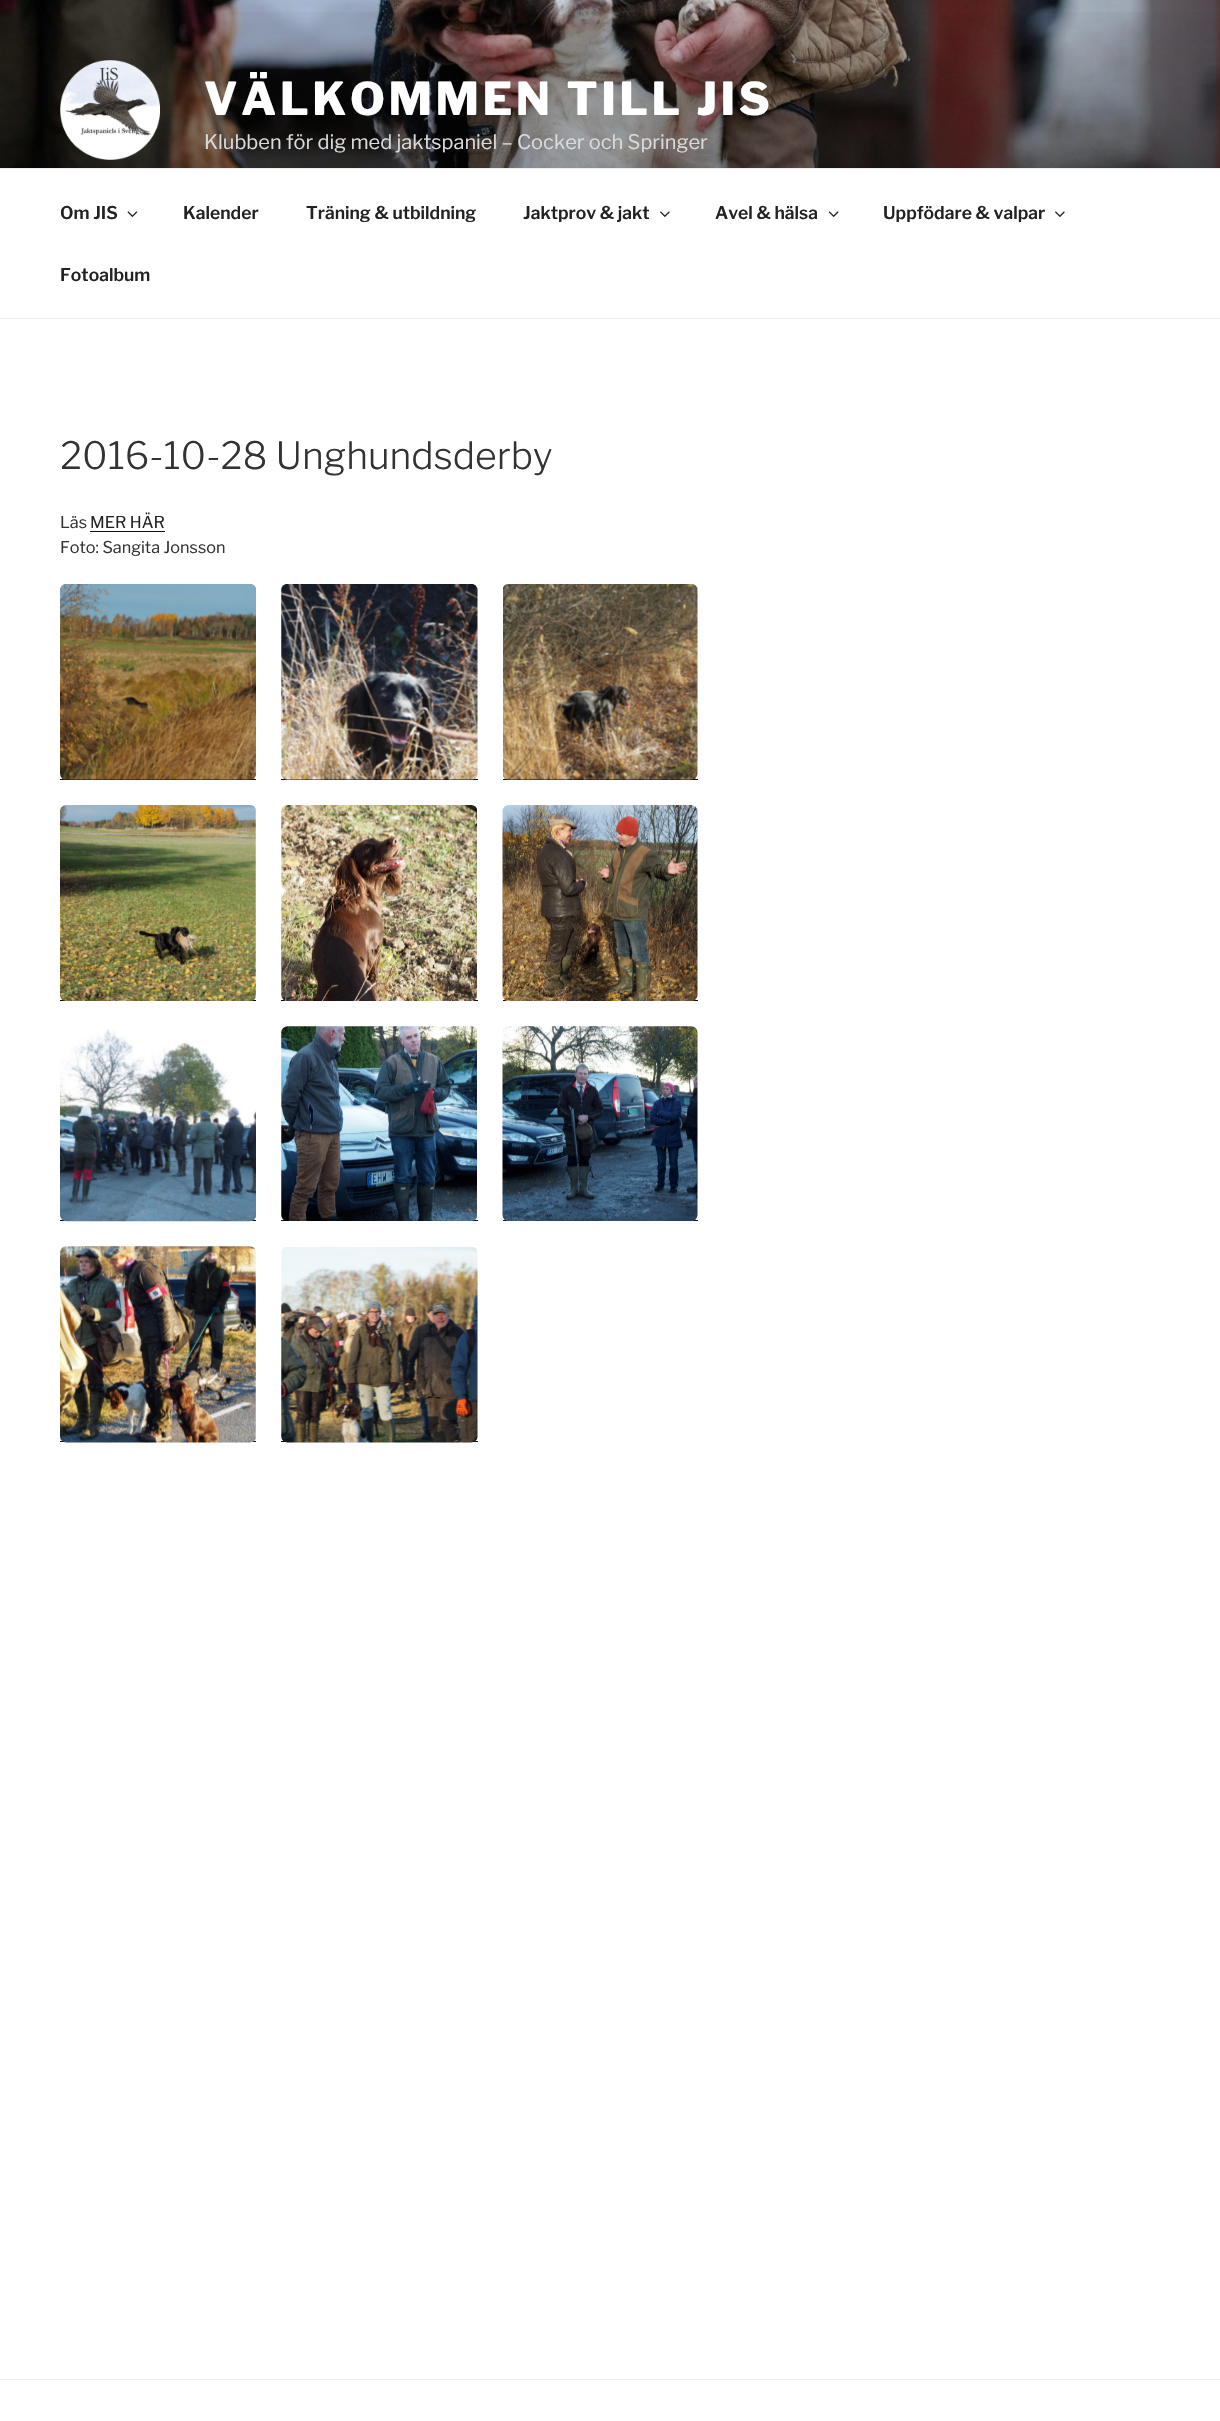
#include "include/core/SkBlurTypes.h"
#include "include/core/SkCanvas.h"
#include "include/core/SkData.h"
#include "include/core/SkFont.h"
#include "include/core/SkFontMgr.h"
#include "include/core/SkImage.h"
#include "include/core/SkMaskFilter.h"
#include "include/core/SkPaint.h"
#include "include/core/SkPathBuilder.h"
#include "include/core/SkTextBlob.h"
#include "include/effects/SkDashPathEffect.h"
#include "include/effects/SkGradientShader.h"
#include "include/utils/SkParsePath.h"

extern sk_sp<SkFontMgr> fontMgr;

void draw(SkCanvas* canvas) {
    SkPaint p;
    p.setAntiAlias(true);
    auto font = [&](const char* family, int weight, float size, bool italic = false) {
        SkFontStyle style(weight, SkFontStyle::kNormal_Width,
            italic ? SkFontStyle::kItalic_Slant : SkFontStyle::kUpright_Slant);
        SkFont result(fontMgr->matchFamilyStyle(family, style), size);
        result.setSubpixel(true);
        return result;
    };
    auto drawTracked = [&](const char* s, float x, float y, const SkFont& font, const SkPaint& ink, float letter, float word) {
        std::vector<SkGlyphID> glyphs(font.countText(s, strlen(s), SkTextEncoding::kUTF8));
        std::vector<float> xs(glyphs.size());
        font.textToGlyphs(s, strlen(s), SkTextEncoding::kUTF8, glyphs);
        font.getXPos(glyphs, xs, x);
        float extra = 0;
        for (size_t i = 0; i < glyphs.size(); i++) {
            xs[i] += extra;
            extra += letter + word * (glyphs[i] == font.unicharToGlyph(' '));
        }
        canvas->drawTextBlob(SkTextBlob::MakeFromPosHGlyphs(glyphs, xs, y, font), 0, 0, ink);
    };
    auto drawPhoto = [&](const char* path, float l, float t, float r, float b) {
        auto image = SkImages::DeferredFromEncodedData(SkData::MakeFromFileName(path));
        canvas->drawImageRect(image, SkRect::MakeLTRB(l, t, r, b), SkSamplingOptions());
    };
    canvas->clear(0xFFFFFFFF);
    drawPhoto("media/1.png", 0, 0, 1220, 168);
    {
        const SkColor colors[] = {0x00000000, 0x4D000000, 0x4D000000};
        const float stops[] = {0, 0.75f, 1};
        const SkPoint ends[] = {{610, 0}, {610, 229}};
        p.setShader(SkGradientShader::MakeLinear(ends, colors, stops, 3, SkTileMode::kClamp));
        p.setAlpha(255);
    }
    canvas->drawRect(SkRect::MakeLTRB(0, 12, 1220, 168), p);
    drawPhoto("media/2.png", 60, 60, 160, 160);
    auto font1 = font("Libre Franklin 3", 100, 45);
    p.setShader(nullptr);
    p.setColor(0xFFFFFFFF);
    drawTracked("VÄLKOMMEN TILL JIS", 204, 115, font1, p, 3.6f, 0);
    auto font2 = font("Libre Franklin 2", 100, 20);
    p.setColor(0xFFDBDADA);
    canvas->drawString("Klubben för dig med jaktspaniel – Cocker och Springer", 204, 149, font2, p);
    p.setColor(0xFFEEEEEE);
    canvas->drawRect(SkRect::MakeLTRB(0, 168, 1220, 169), p);
    canvas->drawRect(SkRect::MakeLTRB(0, 318, 1220, 319), p);
    auto font3 = font("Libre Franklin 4", 100, 17.5f);
    p.setColor(0xFF222222);
    canvas->drawString("Om JIS", 60, 219, font3, p);
    drawPhoto("media/3.png", 127, 211, 138, 217);
    {
        const struct { const char* s; float x, y; } items[] = {
            {"Kalender", 183, 219},
            {"Träning & utbildning", 306, 219},
            {"Jaktprov & jakt", 523, 219},
        };
        for (auto [s, x, y] : items) {
            canvas->drawString(s, x, y, font3, p);
        }
    }
    drawPhoto("media/4.png", 660, 211, 670, 217);
    canvas->drawString("Avel & hälsa", 715, 219, font3, p);
    drawPhoto("media/5.png", 828, 211, 839, 217);
    canvas->drawString("Uppfödare & valpar", 883, 219, font3, p);
    drawPhoto("media/4.png", 1055, 211, 1065, 217);
    canvas->drawString("Fotoalbum", 60, 281, font3, p);
    auto font4 = font("Libre Franklin", 100, 37.5f);
    p.setColor(0xFF333333);
    canvas->drawString("2016-10-28 Unghundsderby", 60, 469, font4, p);
    auto font5 = font("Libre Franklin 2", 100, 16.25f);
    canvas->drawString("Läs", 60, 528, font5, p);
    p.setColor(0xFF222222);
    canvas->drawString("MER HÄR", 90, 528, font5, p);
    p.setColor(0xFF0F0F0F);
    canvas->drawRect(SkRect::MakeLTRB(90, 531, 165, 532), p);
    p.setColor(0xFF333333);
    canvas->drawString("Foto: Sangita Jonsson", 60, 553, font5, p);
    p.setColor(0xFF0F0F0F);
    canvas->drawRect(SkRect::MakeLTRB(60, 779, 256, 780), p);
    drawPhoto("media/6.png", 60, 584, 256, 780);
    canvas->drawRect(SkRect::MakeLTRB(281, 779, 478, 780), p);
    drawPhoto("media/7.png", 281, 584, 478, 780);
    canvas->drawRect(SkRect::MakeLTRB(503, 779, 698, 780), p);
    drawPhoto("media/8.png", 503, 584, 698, 780);
    canvas->drawRect(SkRect::MakeLTRB(60, 1000, 256, 1001), p);
    drawPhoto("media/9.png", 60, 805, 256, 1001);
    canvas->drawRect(SkRect::MakeLTRB(281, 1000, 478, 1001), p);
    drawPhoto("media/10.png", 281, 805, 477, 1001);
    canvas->drawRect(SkRect::MakeLTRB(503, 1000, 698, 1001), p);
    drawPhoto("media/11.png", 502, 805, 698, 1001);
    canvas->drawRect(SkRect::MakeLTRB(60, 1220, 256, 1221), p);
    drawPhoto("media/12.png", 60, 1029, 256, 1222);
    canvas->drawRect(SkRect::MakeLTRB(281, 1220, 478, 1221), p);
    drawPhoto("media/13.png", 281, 1026, 477, 1221);
    canvas->drawRect(SkRect::MakeLTRB(503, 1220, 698, 1221), p);
    drawPhoto("media/14.png", 502, 1026, 698, 1221);
    canvas->drawRect(SkRect::MakeLTRB(60, 1441, 256, 1442), p);
    drawPhoto("media/15.png", 60, 1246, 256, 1443);
    canvas->drawRect(SkRect::MakeLTRB(281, 1441, 478, 1442), p);
    drawPhoto("media/16.png", 281, 1247, 478, 1443);
    p.setColor(0xFFEEEEEE);
    canvas->drawRect(SkRect::MakeLTRB(0, 2379, 1220, 2380), p);
}
